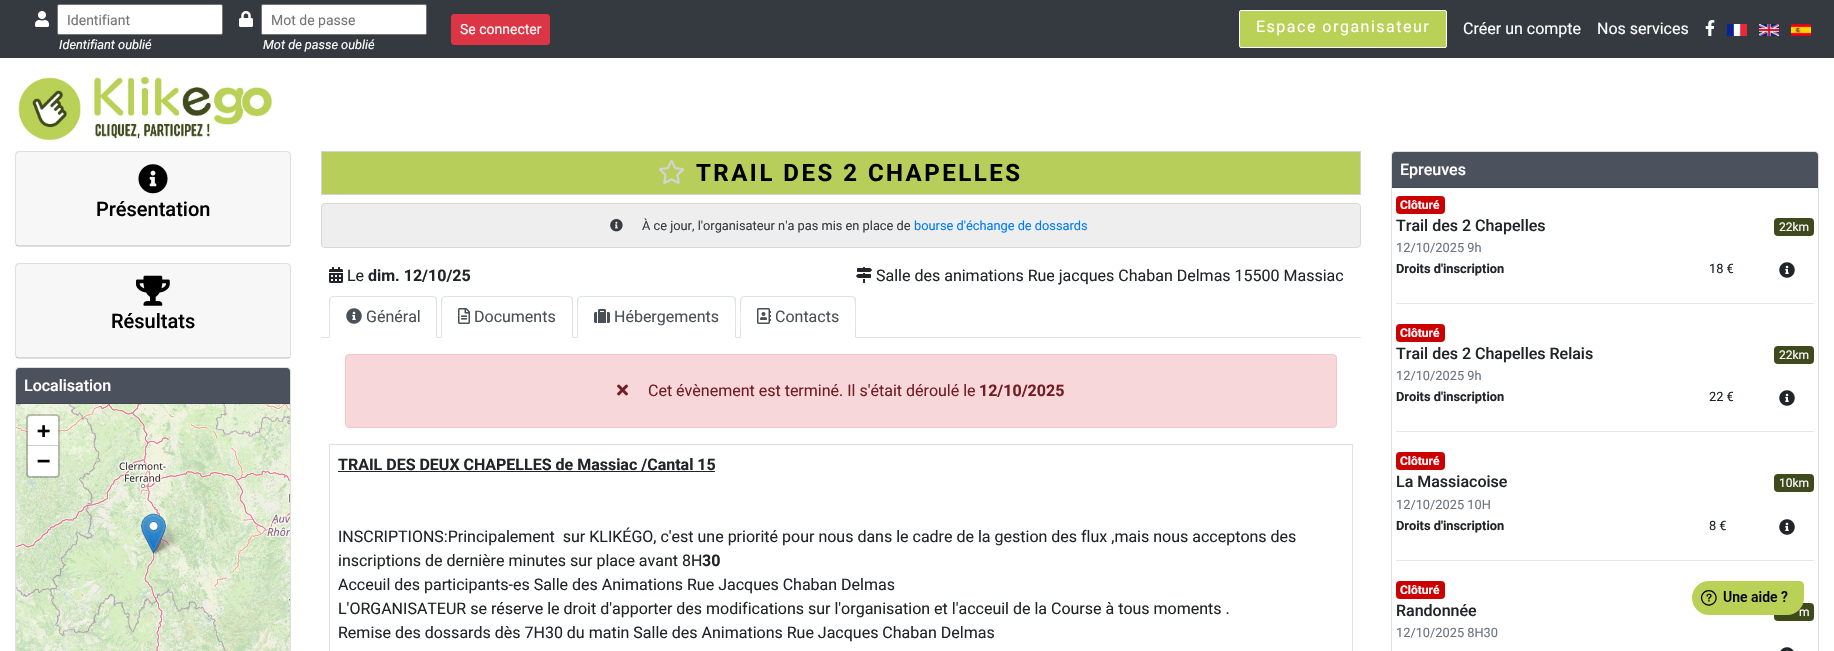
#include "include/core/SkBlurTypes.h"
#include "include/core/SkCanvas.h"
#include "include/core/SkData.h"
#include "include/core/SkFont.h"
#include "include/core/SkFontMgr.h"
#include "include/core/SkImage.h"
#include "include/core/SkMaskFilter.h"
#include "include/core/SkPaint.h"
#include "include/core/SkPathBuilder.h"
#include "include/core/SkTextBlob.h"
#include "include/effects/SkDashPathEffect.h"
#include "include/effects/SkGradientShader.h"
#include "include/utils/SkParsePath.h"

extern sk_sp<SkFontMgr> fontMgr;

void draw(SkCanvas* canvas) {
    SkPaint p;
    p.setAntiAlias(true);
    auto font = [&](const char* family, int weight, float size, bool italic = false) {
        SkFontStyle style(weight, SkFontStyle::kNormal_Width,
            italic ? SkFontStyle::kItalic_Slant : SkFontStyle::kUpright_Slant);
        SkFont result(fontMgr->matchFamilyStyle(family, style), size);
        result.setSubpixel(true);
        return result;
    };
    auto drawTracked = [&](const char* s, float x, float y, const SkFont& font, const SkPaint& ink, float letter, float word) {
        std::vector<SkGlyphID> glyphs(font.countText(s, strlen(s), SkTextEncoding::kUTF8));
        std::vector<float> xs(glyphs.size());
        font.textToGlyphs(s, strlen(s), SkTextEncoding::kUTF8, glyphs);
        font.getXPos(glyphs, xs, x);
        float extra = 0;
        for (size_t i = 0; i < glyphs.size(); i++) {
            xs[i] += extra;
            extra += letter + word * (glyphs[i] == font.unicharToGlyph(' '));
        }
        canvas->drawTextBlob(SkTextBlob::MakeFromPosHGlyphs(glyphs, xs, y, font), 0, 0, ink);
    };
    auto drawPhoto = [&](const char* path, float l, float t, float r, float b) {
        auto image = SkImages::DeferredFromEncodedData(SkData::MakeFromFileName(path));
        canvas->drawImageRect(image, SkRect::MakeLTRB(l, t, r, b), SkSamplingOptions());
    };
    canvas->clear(0xFFFFFFFF);
    p.setColor(0xFF343A40);
    canvas->drawRect(SkRect::MakeLTRB(0, 0, 1834, 58), p);
    drawPhoto("media/1.png", 35, 11, 49, 27);
    p.setColor(0xFFFFFFFF);
    canvas->drawRoundRect(SkRect::MakeLTRB(57.5f, 4.5f, 222.5f, 34.5f), 1.5f, 1.5f, p);
    p.setStyle(SkPaint::kStroke_Style);
    p.setStrokeWidth(1);
    p.setColor(0xFF767676);
    canvas->drawRoundRect(SkRect::MakeLTRB(57.5f, 4.5f, 222.5f, 34.5f), 1.5f, 1.5f, p);
    auto font1 = font("Roboto", 400, 14);
    p.setStyle(SkPaint::kFill_Style);
    p.setColor(0xFF757575);
    canvas->drawString("Identifiant", 67, 25, font1, p);
    auto font2 = font("Roboto", 400, 12.8f, true);
    p.setColor(0xFFFFFFFF);
    canvas->drawString("Identifiant oublié", 59, 49, font2, p);
    drawPhoto("media/2.png", 239, 11, 253, 27);
    canvas->drawRoundRect(SkRect::MakeLTRB(261.5f, 4.5f, 426.5f, 34.5f), 1.5f, 1.5f, p);
    p.setStyle(SkPaint::kStroke_Style);
    p.setColor(0xFF767676);
    canvas->drawRoundRect(SkRect::MakeLTRB(261.5f, 4.5f, 426.5f, 34.5f), 1.5f, 1.5f, p);
    p.setStyle(SkPaint::kFill_Style);
    p.setColor(0xFF757575);
    canvas->drawString("Mot de passe", 271, 25, font1, p);
    p.setColor(0xFFFFFFFF);
    canvas->drawString("Mot de passe oublié", 263, 49, font2, p);
    p.setColor(0xFFDC3545);
    canvas->drawRoundRect(SkRect::MakeLTRB(451.5f, 14.5f, 549.5f, 44.5f), 2.5f, 2.5f, p);
    p.setStyle(SkPaint::kStroke_Style);
    canvas->drawRoundRect(SkRect::MakeLTRB(451.5f, 14.5f, 549.5f, 44.5f), 2.5f, 2.5f, p);
    p.setStyle(SkPaint::kFill_Style);
    p.setColor(0xFFFFFFFF);
    canvas->drawString("Se connecter", 460, 34, font1, p);
    p.setColor(0xFFB9D157);
    canvas->drawRoundRect(SkRect::MakeLTRB(1239.5f, 10.5f, 1446.5f, 47.5f), 1.5f, 1.5f, p);
    p.setStyle(SkPaint::kStroke_Style);
    p.setColor(0xFFFFFFFF);
    canvas->drawRoundRect(SkRect::MakeLTRB(1239.5f, 10.5f, 1446.5f, 47.5f), 1.5f, 1.5f, p);
    auto font3 = font("Roboto", 400, 16);
    p.setStyle(SkPaint::kFill_Style);
    drawTracked("Espace organisateur", 1256, 32, font3, p, 1.5f, 0);
    canvas->drawString("Créer un compte", 1463, 34, font3, p);
    canvas->drawString("Nos services", 1597, 34, font3, p);
    drawPhoto("media/3.png", 1705, 20, 1715, 36);
    drawPhoto("media/4.png", 1727, 24, 1747, 36);
    drawPhoto("media/5.png", 1759, 24, 1779, 36);
    drawPhoto("media/6.png", 1791, 24, 1811, 36);
    drawPhoto("media/7.png", 17, 77, 273, 141);
    p.setStyle(SkPaint::kStroke_Style);
    p.setColor(0xFFDFDFDF);
    canvas->drawRoundRect(SkRect::MakeLTRB(15.5f, 151.5f, 290.5f, 246.5f), 3.5f, 3.5f, p);
    p.setStyle(SkPaint::kFill_Style);
    p.setColor(0x08000000);
    canvas->drawRect(SkRect::MakeLTRB(16, 152, 290, 246), p);
    p.setColor(0x1F000000);
    canvas->drawRect(SkRect::MakeLTRB(16, 245, 290, 246), p);
    drawPhoto("media/8.png", 138, 164, 168, 194);
    auto font4 = font("Roboto", 500, 20);
    p.setColor(0xFF000000);
    canvas->drawString("Présentation", 96, 216, font4, p);
    p.setStyle(SkPaint::kStroke_Style);
    p.setColor(0xFFDFDFDF);
    canvas->drawRoundRect(SkRect::MakeLTRB(15.5f, 263.5f, 290.5f, 358.5f), 3.5f, 3.5f, p);
    p.setStyle(SkPaint::kFill_Style);
    p.setColor(0x08000000);
    canvas->drawRect(SkRect::MakeLTRB(16, 264, 290, 358), p);
    p.setColor(0x1F000000);
    canvas->drawRect(SkRect::MakeLTRB(16, 357, 290, 358), p);
    drawPhoto("media/9.png", 136, 275, 170, 306);
    p.setColor(0xFF000000);
    canvas->drawString("Résultats", 111, 328, font4, p);
    p.setStyle(SkPaint::kStroke_Style);
    p.setColor(0xFFDFDFDF);
    canvas->drawRoundRect(SkRect::MakeLTRB(15.5f, 367.5f, 290.5f, 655.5f), 3.5f, 3.5f, p);
    p.setStyle(SkPaint::kFill_Style);
    p.setColor(0xFF4B515D);
    canvas->drawPath(SkPathBuilder().moveTo(19, 368).lineTo(287, 368).cubicTo(288.5f, 368, 290, 369.5f, 290, 371).lineTo(290, 404).lineTo(16, 404).lineTo(16, 371).cubicTo(16, 369.5f, 17.5f, 368, 19, 368).close().detach(), p);
    p.setColor(0xFF424751);
    canvas->drawRect(SkRect::MakeLTRB(16, 403, 290, 404), p);
    auto font5 = font("Roboto", 500, 16);
    p.setColor(0xFFFFFFFF);
    canvas->drawString("Localisation", 24, 391, font5, p);
    drawPhoto("media/10.png", 16, 404, 118, 575);
    drawPhoto("media/11.png", 118, 404, 290, 575);
    drawPhoto("media/12.png", 16, 575, 118, 651);
    drawPhoto("media/13.png", 118, 575, 290, 651);
    drawPhoto("media/15.png", 151, 526, 180, 554);
    drawPhoto("media/14.png", 141, 513, 166, 554);
    p.setStyle(SkPaint::kStroke_Style);
    p.setStrokeWidth(2);
    p.setColor(0x33000000);
    canvas->drawRoundRect(SkRect::MakeLTRB(27, 415, 59, 477), 3, 3, p);
    p.setStyle(SkPaint::kFill_Style);
    p.setColor(0xFFFFFFFF);
    canvas->drawPath(SkPathBuilder().moveTo(30, 416).lineTo(56, 416).cubicTo(57, 416, 58, 417, 58, 418).lineTo(58, 446).lineTo(28, 446).lineTo(28, 418).cubicTo(28, 417, 29, 416, 30, 416).close().detach(), p);
    p.setColor(0xFFCCCCCC);
    canvas->drawRect(SkRect::MakeLTRB(28, 445, 58, 446), p);
    auto font6 = font("DejaVu Sans Mono", 700, 22);
    p.setColor(0xFF000000);
    canvas->drawString("+", 37, 438, font6, p);
    p.setColor(0xFFFFFFFF);
    canvas->drawPath(SkPathBuilder().moveTo(28, 446).lineTo(58, 446).lineTo(58, 474).cubicTo(58, 475, 57, 476, 56, 476).lineTo(30, 476).cubicTo(29, 476, 28, 475, 28, 474).close().detach(), p);
    p.setColor(0xFF000000);
    canvas->drawString("−", 37, 468, font6, p);
    p.setColor(0xFFB7CE5A);
    canvas->drawRect(SkRect::MakeLTRB(321.5f, 151.5f, 1360.5f, 194.5f), p);
    p.setStyle(SkPaint::kStroke_Style);
    p.setStrokeWidth(1);
    p.setColor(0xFFD3D3D3);
    canvas->drawRect(SkRect::MakeLTRB(321.5f, 151.5f, 1360.5f, 194.5f), p);
    drawPhoto("media/16.png", 659, 160, 684, 184);
    auto font7 = font("Roboto", 700, 24);
    p.setStyle(SkPaint::kFill_Style);
    p.setColor(0xFF000000);
    drawTracked("TRAIL DES 2 CHAPELLES", 696, 181, font7, p, 2.5f, 0);
    p.setColor(0xFFEEEEEE);
    canvas->drawRoundRect(SkRect::MakeLTRB(321.5f, 203.5f, 1360.5f, 247.5f), 3.5f, 3.5f, p);
    p.setStyle(SkPaint::kStroke_Style);
    p.setColor(0xFFD6D8DB);
    canvas->drawRoundRect(SkRect::MakeLTRB(321.5f, 203.5f, 1360.5f, 247.5f), 3.5f, 3.5f, p);
    drawPhoto("media/17.png", 610, 219, 623, 232);
    auto font8 = font("Roboto", 400, 12.8f);
    p.setStyle(SkPaint::kFill_Style);
    p.setColor(0xFF383D41);
    canvas->drawString("À ce jour, l'organisateur n'a pas mis en place de", 642, 230, font8, p);
    p.setColor(0xFF007BFF);
    canvas->drawString("bourse d'échange de dossards", 914, 230, font8, p);
    drawPhoto("media/18.png", 329, 267, 343, 283);
    p.setColor(0xFF212529);
    canvas->drawString("Le", 347, 281, font3, p);
    auto font9 = font("Roboto", 700, 16);
    canvas->drawString("dim. 12/10/25", 368, 281, font9, p);
    drawPhoto("media/19.png", 856, 267, 872, 283);
    canvas->drawString("Salle des animations Rue jacques Chaban Delmas 15500 Massiac", 876, 281, font3, p);
    p.setColor(0xFFDEE2E6);
    canvas->drawRect(SkRect::MakeLTRB(321, 337, 1361, 338), p);
    p.setColor(0xFFFFFFFF);
    canvas->drawPath(SkPathBuilder().moveTo(333, 296).lineTo(433, 296).cubicTo(435, 296, 437, 298, 437, 300).lineTo(437, 338).lineTo(329, 338).lineTo(329, 300).cubicTo(329, 298, 331, 296, 333, 296).close().detach(), p);
    p.setColor(0xFFDEE2E6);
    canvas->drawPath(SkPathBuilder().moveTo(333, 296).lineTo(330, 297).lineTo(331, 298).lineTo(333, 297).lineTo(433, 297).lineTo(435, 298).lineTo(436, 297).lineTo(433, 296).close().detach(), p);
    canvas->drawPath(SkPathBuilder().moveTo(437, 338).lineTo(437, 300).cubicTo(437, 299, 436, 298, 436, 297).lineTo(435, 298).cubicTo(437, 300, 436, 332, 436, 337).close().detach(), p);
    p.setColor(0xFFFFFFFF);
    canvas->drawPath(SkPathBuilder().moveTo(437, 338).lineTo(436, 337).lineTo(330, 337).lineTo(329, 338).close().detach(), p);
    p.setColor(0xFFDEE2E6);
    canvas->drawPath(SkPathBuilder().moveTo(329, 338).lineTo(330, 337).cubicTo(330, 332, 329, 300, 331, 298).lineTo(330, 297).lineTo(329, 300).close().detach(), p);
    drawPhoto("media/20.png", 346, 308, 362, 324);
    p.setColor(0xFF495057);
    canvas->drawString("Général", 366, 322, font3, p);
    p.setColor(0xFFFFFFFF);
    canvas->drawPath(SkPathBuilder().moveTo(445, 296).lineTo(569, 296).cubicTo(571, 296, 573, 298, 573, 300).lineTo(573, 338).lineTo(441, 338).lineTo(441, 300).cubicTo(441, 298, 443, 296, 445, 296).close().detach(), p);
    p.setColor(0xFFDEE2E6);
    canvas->drawPath(SkPathBuilder().moveTo(445, 296).lineTo(442, 297).lineTo(443, 298).lineTo(445, 297).lineTo(569, 297).lineTo(571, 298).lineTo(572, 297).lineTo(569, 296).close().detach(), p);
    canvas->drawPath(SkPathBuilder().moveTo(573, 338).lineTo(573, 300).cubicTo(573, 299, 572, 298, 572, 297).lineTo(571, 298).cubicTo(573, 300, 572, 332, 572, 337).close().detach(), p);
    p.setColor(0xFFFFFFFF);
    canvas->drawPath(SkPathBuilder().moveTo(573, 338).lineTo(572, 337).lineTo(442, 337).lineTo(441, 338).close().detach(), p);
    p.setColor(0xFFDEE2E6);
    canvas->drawPath(SkPathBuilder().moveTo(441, 338).lineTo(442, 337).cubicTo(442, 332, 441, 300, 443, 298).lineTo(442, 297).lineTo(441, 300).close().detach(), p);
    drawPhoto("media/21.png", 458, 308, 470, 324);
    p.setColor(0xFF495057);
    canvas->drawString("Documents", 474, 322, font3, p);
    p.setColor(0xFFFFFFFF);
    canvas->drawPath(SkPathBuilder().moveTo(581, 296).lineTo(732, 296).cubicTo(734, 296, 736, 298, 736, 300).lineTo(736, 338).lineTo(577, 338).lineTo(577, 300).cubicTo(577, 298, 579, 296, 581, 296).close().detach(), p);
    p.setColor(0xFFDEE2E6);
    canvas->drawPath(SkPathBuilder().moveTo(581, 296).lineTo(578, 297).lineTo(579, 298).lineTo(581, 297).lineTo(732, 297).lineTo(734, 298).lineTo(735, 297).lineTo(732, 296).close().detach(), p);
    canvas->drawPath(SkPathBuilder().moveTo(736, 338).lineTo(736, 300).cubicTo(736, 299, 736, 298, 735, 297).lineTo(734, 298).cubicTo(736, 300, 735, 332, 735, 337).close().detach(), p);
    p.setColor(0xFFFFFFFF);
    canvas->drawPath(SkPathBuilder().moveTo(736, 338).lineTo(735, 337).lineTo(578, 337).lineTo(577, 338).close().detach(), p);
    p.setColor(0xFFDEE2E6);
    canvas->drawPath(SkPathBuilder().moveTo(577, 338).lineTo(578, 337).cubicTo(578, 332, 577, 300, 579, 298).lineTo(578, 297).lineTo(577, 300).close().detach(), p);
    drawPhoto("media/22.png", 594, 309, 610, 323);
    p.setColor(0xFF495057);
    canvas->drawString("Hébergements", 614, 322, font3, p);
    p.setColor(0xFFFFFFFF);
    canvas->drawPath(SkPathBuilder().moveTo(744, 296).lineTo(852, 296).cubicTo(854, 296, 856, 298, 856, 300).lineTo(856, 338).lineTo(740, 338).lineTo(740, 300).cubicTo(740, 298, 742, 296, 744, 296).close().detach(), p);
    p.setColor(0xFFDEE2E6);
    canvas->drawPath(SkPathBuilder().moveTo(744, 296).lineTo(741, 297).lineTo(742, 298).lineTo(744, 297).lineTo(852, 297).lineTo(854, 298).lineTo(855, 297).lineTo(852, 296).close().detach(), p);
    canvas->drawPath(SkPathBuilder().moveTo(856, 338).lineTo(856, 300).cubicTo(856, 299, 856, 298, 855, 297).lineTo(854, 298).cubicTo(856, 300, 855, 332, 855, 337).close().detach(), p);
    p.setColor(0xFFFFFFFF);
    canvas->drawPath(SkPathBuilder().moveTo(856, 338).lineTo(855, 337).lineTo(741, 337).lineTo(740, 338).close().detach(), p);
    p.setColor(0xFFDEE2E6);
    canvas->drawPath(SkPathBuilder().moveTo(740, 338).lineTo(741, 337).cubicTo(741, 332, 740, 300, 742, 298).lineTo(741, 297).lineTo(740, 300).close().detach(), p);
    drawPhoto("media/23.png", 757, 308, 771, 324);
    p.setColor(0xFF495057);
    canvas->drawString("Contacts", 775, 322, font3, p);
    p.setColor(0xFFF8D7DA);
    canvas->drawRoundRect(SkRect::MakeLTRB(345.5f, 354.5f, 1336.5f, 427.5f), 3.5f, 3.5f, p);
    p.setStyle(SkPaint::kStroke_Style);
    p.setColor(0xFFF5C6CB);
    canvas->drawRoundRect(SkRect::MakeLTRB(345.5f, 354.5f, 1336.5f, 427.5f), 3.5f, 3.5f, p);
    drawPhoto("media/24.png", 617, 384, 628, 396);
    p.setStyle(SkPaint::kFill_Style);
    p.setColor(0xFF721C24);
    canvas->drawString("Cet évènement est terminé. Il s'était déroulé le", 648, 396, font3, p);
    canvas->drawString("12/10/2025", 979, 396, font9, p);
    p.setStyle(SkPaint::kStroke_Style);
    p.setColor(0xFFE1E1E1);
    canvas->drawRect(SkRect::MakeLTRB(329.5f, 444.5f, 1352.5f, 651.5f), p);
    p.setStyle(SkPaint::kFill_Style);
    p.setColor(0xFF212529);
    canvas->drawString("TRAIL DES DEUX CHAPELLES de Massiac /Cantal 15", 338, 470, font9, p);
    canvas->drawRect(SkRect::MakeLTRB(338, 471, 715, 472), p);
    canvas->drawString("INSCRIPTIONS:Principalement  sur KLIKÉGO, c'est une priorité pour nous dans le cadre de la gestion des flux ,mais nous acceptons des", 338, 542, font3, p);
    canvas->drawString("inscriptions de dernière minutes sur place avant 8H", 338, 566, font3, p);
    canvas->drawString("30", 702, 566, font9, p);
    {
        const struct { const char* s; float x, y; } items[] = {
            {"Acceuil des participants-es Salle des Animations Rue Jacques Chaban Delmas", 338, 590},
            {"L'ORGANISATEUR se réserve le droit d'apporter des modifications sur l'organisation et l'acceuil de la Course à tous moments .", 338, 614},
            {"Remise des dossards dès 7H30 du matin Salle des Animations Rue Jacques Chaban Delmas", 338, 638},
        };
        for (auto [s, x, y] : items) {
            canvas->drawString(s, x, y, font3, p);
        }
    }
    p.setStyle(SkPaint::kStroke_Style);
    p.setColor(0xFFDFDFDF);
    canvas->drawRoundRect(SkRect::MakeLTRB(1391.5f, 151.5f, 1818.5f, 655.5f), 3.5f, 3.5f, p);
    p.setStyle(SkPaint::kFill_Style);
    p.setColor(0xFF4B515D);
    canvas->drawPath(SkPathBuilder().moveTo(1395, 152).lineTo(1815, 152).cubicTo(1816.5f, 152, 1818, 153.5f, 1818, 155).lineTo(1818, 188).lineTo(1392, 188).lineTo(1392, 155).cubicTo(1392, 153.5f, 1393.5f, 152, 1395, 152).close().detach(), p);
    p.setColor(0xFF424751);
    canvas->drawRect(SkRect::MakeLTRB(1392, 187, 1818, 188), p);
    p.setColor(0xFFFFFFFF);
    canvas->drawString("Epreuves", 1400, 175, font5, p);
    p.setColor(0xFFCC0000);
    canvas->drawRoundRect(SkRect::MakeLTRB(1396, 196, 1445, 214), 4, 4, p);
    auto font10 = font("Roboto", 700, 12);
    p.setColor(0xFFFFFFFF);
    canvas->drawString("Clôturé", 1400, 209, font10, p);
    p.setColor(0xFF212529);
    canvas->drawString("Trail des 2 Chapelles", 1396, 231, font5, p);
    p.setColor(0xFF3E4A1C);
    canvas->drawRoundRect(SkRect::MakeLTRB(1774, 218, 1814, 236), 4, 4, p);
    auto font11 = font("Roboto", 400, 12);
    p.setColor(0xFFFFFFFF);
    canvas->drawString("22km", 1779, 231, font11, p);
    p.setColor(0xFF6C757D);
    canvas->drawString("12/10/2025 9h", 1396, 252, font8, p);
    auto font12 = font("Roboto", 700, 12.8f);
    p.setColor(0xFF212529);
    canvas->drawString("Droits d'inscription", 1396, 273, font12, p);
    canvas->drawString("18 €", 1709, 273, font8, p);
    drawPhoto("media/25.png", 1779, 262, 1795, 278);
    p.setColor(0xFFE6E6E6);
    canvas->drawRect(SkRect::MakeLTRB(1396, 303, 1814, 304), p);
    p.setColor(0xFFCC0000);
    canvas->drawRoundRect(SkRect::MakeLTRB(1396, 324, 1445, 342), 4, 4, p);
    p.setColor(0xFFFFFFFF);
    canvas->drawString("Clôturé", 1400, 337, font10, p);
    p.setColor(0xFF212529);
    canvas->drawString("Trail des 2 Chapelles Relais", 1396, 359, font5, p);
    p.setColor(0xFF3E4A1C);
    canvas->drawRoundRect(SkRect::MakeLTRB(1774, 346, 1814, 364), 4, 4, p);
    p.setColor(0xFFFFFFFF);
    canvas->drawString("22km", 1779, 359, font11, p);
    p.setColor(0xFF6C757D);
    canvas->drawString("12/10/2025 9h", 1396, 380, font8, p);
    p.setColor(0xFF212529);
    canvas->drawString("Droits d'inscription", 1396, 401, font12, p);
    canvas->drawString("22 €", 1709, 401, font8, p);
    drawPhoto("media/25.png", 1779, 390, 1795, 406);
    p.setColor(0xFFE6E6E6);
    canvas->drawRect(SkRect::MakeLTRB(1396, 431, 1814, 432), p);
    p.setColor(0xFFCC0000);
    canvas->drawRoundRect(SkRect::MakeLTRB(1396, 452, 1445, 470), 4, 4, p);
    p.setColor(0xFFFFFFFF);
    canvas->drawString("Clôturé", 1400, 465, font10, p);
    p.setColor(0xFF212529);
    canvas->drawString("La Massiacoise", 1396, 487, font5, p);
    p.setColor(0xFF3E4A1C);
    canvas->drawRoundRect(SkRect::MakeLTRB(1774, 474, 1814, 492), 4, 4, p);
    p.setColor(0xFFFFFFFF);
    canvas->drawString("10km", 1779, 487, font11, p);
    p.setColor(0xFF6C757D);
    canvas->drawString("12/10/2025 10H", 1396, 509, font8, p);
    p.setColor(0xFF212529);
    canvas->drawString("Droits d'inscription", 1396, 530, font12, p);
    canvas->drawString("8 €", 1709, 530, font8, p);
    drawPhoto("media/25.png", 1779, 519, 1795, 535);
    p.setColor(0xFFE6E6E6);
    canvas->drawRect(SkRect::MakeLTRB(1396, 560, 1814, 561), p);
    p.setColor(0xFFCC0000);
    canvas->drawRoundRect(SkRect::MakeLTRB(1396, 581, 1445, 599), 4, 4, p);
    p.setColor(0xFFFFFFFF);
    canvas->drawString("Clôturé", 1400, 594, font10, p);
    p.setColor(0xFF212529);
    canvas->drawString("Randonnée", 1396, 616, font5, p);
    p.setColor(0xFF3E4A1C);
    canvas->drawRoundRect(SkRect::MakeLTRB(1774, 603, 1814, 621), 4, 4, p);
    p.setColor(0xFFFFFFFF);
    canvas->drawString("m", 1799, 616, font11, p);
    p.setColor(0xFF6C757D);
    canvas->drawString("12/10/2025 8H30", 1396, 637, font8, p);
    drawPhoto("media/26.png", 1780, 647, 1794, 651);
    drawPhoto("media/27.png", 1692, 581, 1804, 615);
}
